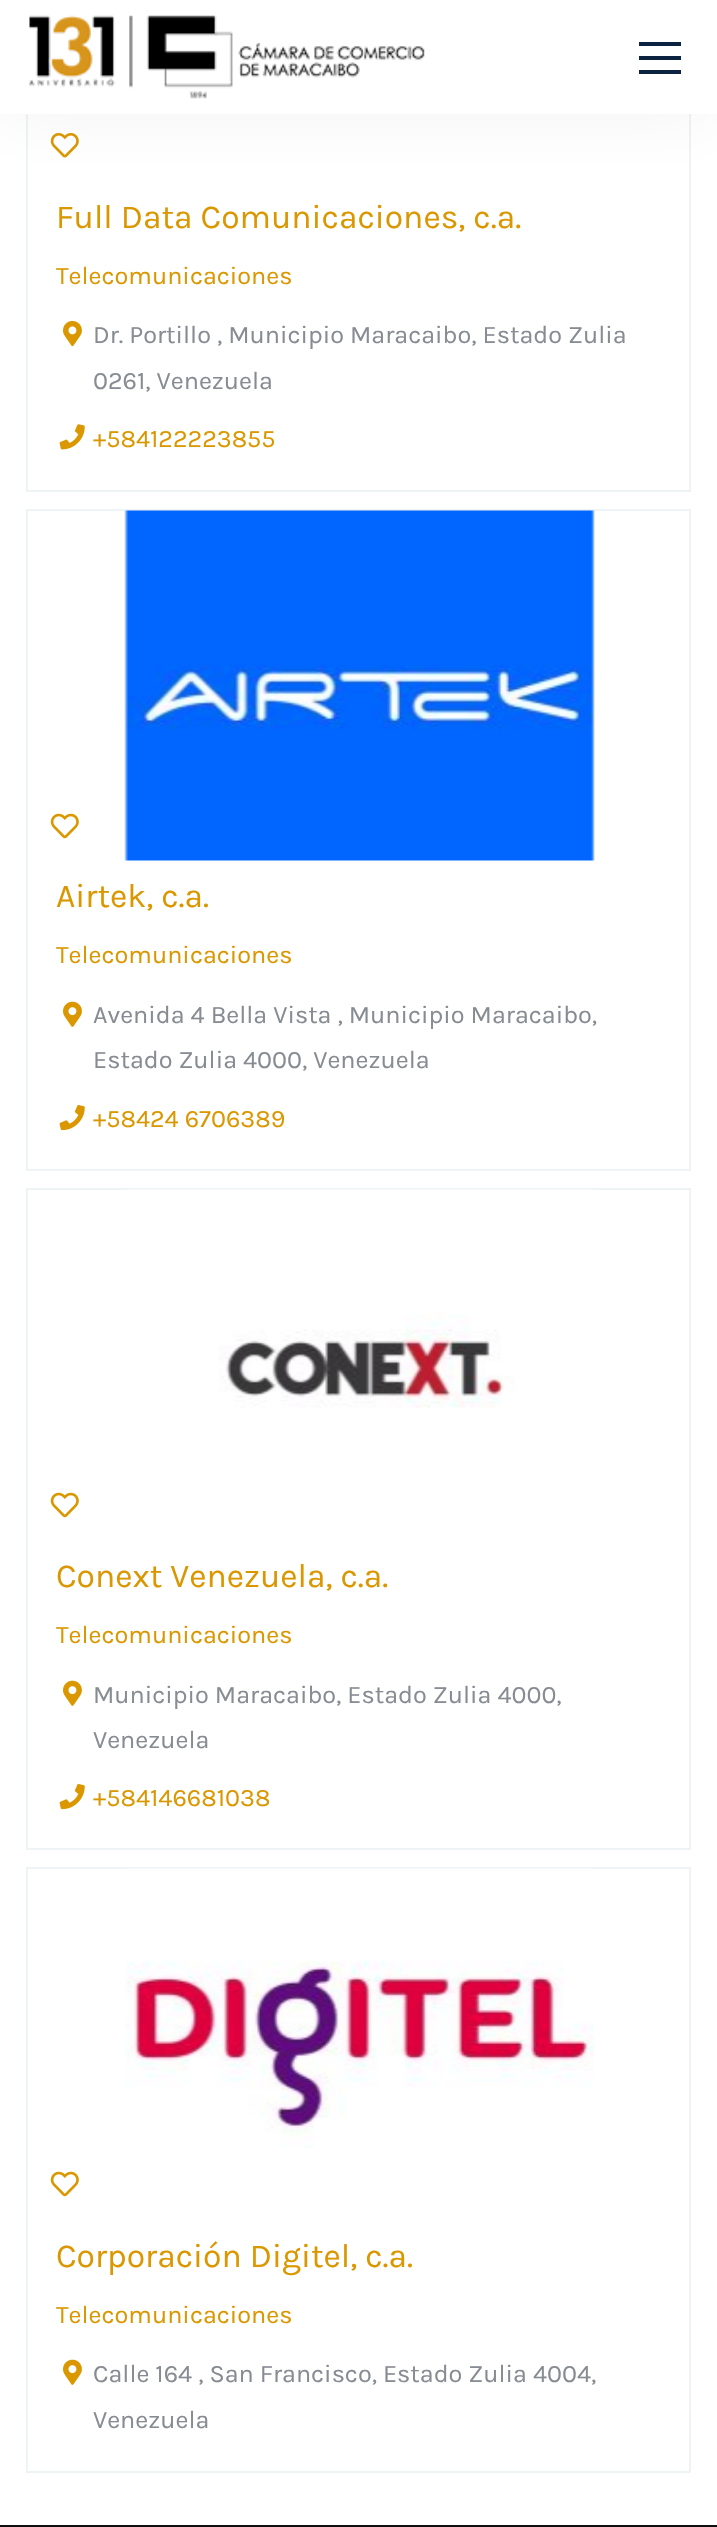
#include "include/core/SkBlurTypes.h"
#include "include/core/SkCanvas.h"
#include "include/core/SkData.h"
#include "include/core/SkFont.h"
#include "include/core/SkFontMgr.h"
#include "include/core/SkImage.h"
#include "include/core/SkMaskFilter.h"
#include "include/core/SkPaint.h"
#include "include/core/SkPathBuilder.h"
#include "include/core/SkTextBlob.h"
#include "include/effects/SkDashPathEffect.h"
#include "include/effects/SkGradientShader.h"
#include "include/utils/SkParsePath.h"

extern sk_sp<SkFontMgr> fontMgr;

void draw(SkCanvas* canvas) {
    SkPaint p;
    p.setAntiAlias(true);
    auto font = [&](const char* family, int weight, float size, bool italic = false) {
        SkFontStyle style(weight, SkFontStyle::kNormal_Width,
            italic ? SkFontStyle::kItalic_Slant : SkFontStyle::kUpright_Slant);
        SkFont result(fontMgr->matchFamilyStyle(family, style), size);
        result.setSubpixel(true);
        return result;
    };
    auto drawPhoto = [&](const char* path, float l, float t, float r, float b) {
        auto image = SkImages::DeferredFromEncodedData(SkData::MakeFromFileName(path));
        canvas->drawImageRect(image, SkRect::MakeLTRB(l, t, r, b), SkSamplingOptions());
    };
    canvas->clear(0xFFFFFFFF);
    p.setStyle(SkPaint::kStroke_Style);
    p.setStrokeWidth(2);
    p.setColor(0xFFEEF3F6);
    canvas->drawRect(SkRect::MakeLTRB(27, -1, 690, 491), p);
    drawPhoto("media/2.png", 50, 133, 79, 158);
    p.setStyle(SkPaint::kFill_Style);
    p.setColor(0x0D0F0F0F);
    p.setMaskFilter(SkMaskFilter::MakeBlur(kNormal_SkBlurStyle, 35));
    canvas->drawRect(SkRect::MakeLTRB(0, 4, 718, 117), p);
    p.setMaskFilter(nullptr);
    p.setColor(0xFFFFFFFF);
    canvas->drawRect(SkRect::MakeLTRB(0, 0, 717, 114), p);
    drawPhoto("media/1.png", 29, 15, 425, 99);
    {
        const struct { float l, t, r, b; SkColor color; } items[] = {
            {639, 70, 681, 74, 0xFF0B2341},
            {639, 42, 681, 46, 0xFF0B2341},
            {639, 56, 681, 60, 0xFF0B2341},
        };
        for (auto [l, t, r, b, color] : items) {
            p.setColor(color);
            canvas->drawRect(SkRect::MakeLTRB(l, t, r, b), p);
        }
    }
    auto font1 = font("Karla", 400, 33.6f);
    p.setColor(0xFFDB9700);
    canvas->drawString("Full Data Comunicaciones, c.a.", 56, 228, font1, p);
    auto font2 = font("Karla", 400, 25.2f);
    canvas->drawString("Telecomunicaciones", 56, 284, font2, p);
    drawPhoto("media/3.png", 63, 320, 82, 347);
    p.setColor(0xFF878B92);
    canvas->drawString("Dr. Portillo , Municipio Maracaibo, Estado Zulia", 93, 343, font2, p);
    canvas->drawString("0261, Venezuela", 93, 389, font2, p);
    drawPhoto("media/4.png", 59, 424, 85, 450);
    p.setColor(0xFFDB9700);
    canvas->drawString("+584122223855", 93, 447, font2, p);
    p.setStyle(SkPaint::kStroke_Style);
    p.setColor(0xFFEEF3F6);
    canvas->drawRect(SkRect::MakeLTRB(27, 510, 690, 1170), p);
    drawPhoto("media/5.png", 50, 813, 79, 839);
    drawPhoto("media/6.png", 124, 510, 595, 861);
    p.setStyle(SkPaint::kFill_Style);
    p.setColor(0xFFDB9700);
    canvas->drawString("Airtek, c.a.", 56, 907, font1, p);
    canvas->drawString("Telecomunicaciones", 56, 963, font2, p);
    drawPhoto("media/7.png", 63, 1001, 82, 1027);
    p.setColor(0xFF878B92);
    canvas->drawString("Avenida 4 Bella Vista , Municipio Maracaibo,", 93, 1023, font2, p);
    canvas->drawString("Estado Zulia 4000, Venezuela", 93, 1068, font2, p);
    drawPhoto("media/8.png", 59, 1105, 85, 1131);
    p.setColor(0xFFDB9700);
    canvas->drawString("+58424 6706389", 93, 1127, font2, p);
    p.setStyle(SkPaint::kStroke_Style);
    p.setColor(0xFFEEF3F6);
    canvas->drawRect(SkRect::MakeLTRB(27, 1189, 690, 1849), p);
    drawPhoto("media/9.png", 126, 1189, 594, 1409);
    drawPhoto("media/5.png", 50, 1492, 79, 1518);
    p.setStyle(SkPaint::kFill_Style);
    p.setColor(0xFFDB9700);
    canvas->drawString("Conext Venezuela, c.a.", 56, 1587, font1, p);
    canvas->drawString("Telecomunicaciones", 56, 1643, font2, p);
    drawPhoto("media/7.png", 63, 1680, 82, 1706);
    p.setColor(0xFF878B92);
    canvas->drawString("Municipio Maracaibo, Estado Zulia 4000,", 93, 1703, font2, p);
    canvas->drawString("Venezuela", 93, 1748, font2, p);
    drawPhoto("media/8.png", 59, 1784, 85, 1810);
    p.setColor(0xFFDB9700);
    canvas->drawString("+584146681038", 93, 1806, font2, p);
    p.setStyle(SkPaint::kStroke_Style);
    p.setColor(0xFFEEF3F6);
    canvas->drawRect(SkRect::MakeLTRB(27, 1868, 690, 2472), p);
    drawPhoto("media/10.png", 125, 1868, 594, 2149);
    drawPhoto("media/5.png", 50, 2171, 79, 2197);
    p.setStyle(SkPaint::kFill_Style);
    p.setColor(0xFFDB9700);
    canvas->drawString("Corporación Digitel, c.a.", 56, 2267, font1, p);
    canvas->drawString("Telecomunicaciones", 56, 2323, font2, p);
    drawPhoto("media/7.png", 63, 2359, 82, 2385);
    p.setColor(0xFF878B92);
    canvas->drawString("Calle 164 , San Francisco, Estado Zulia 4004,", 93, 2382, font2, p);
    canvas->drawString("Venezuela", 93, 2428, font2, p);
    p.setColor(0xFF0F0F0F);
    canvas->drawRect(SkRect::MakeLTRB(0, 2525, 717, 2527), p);
}
